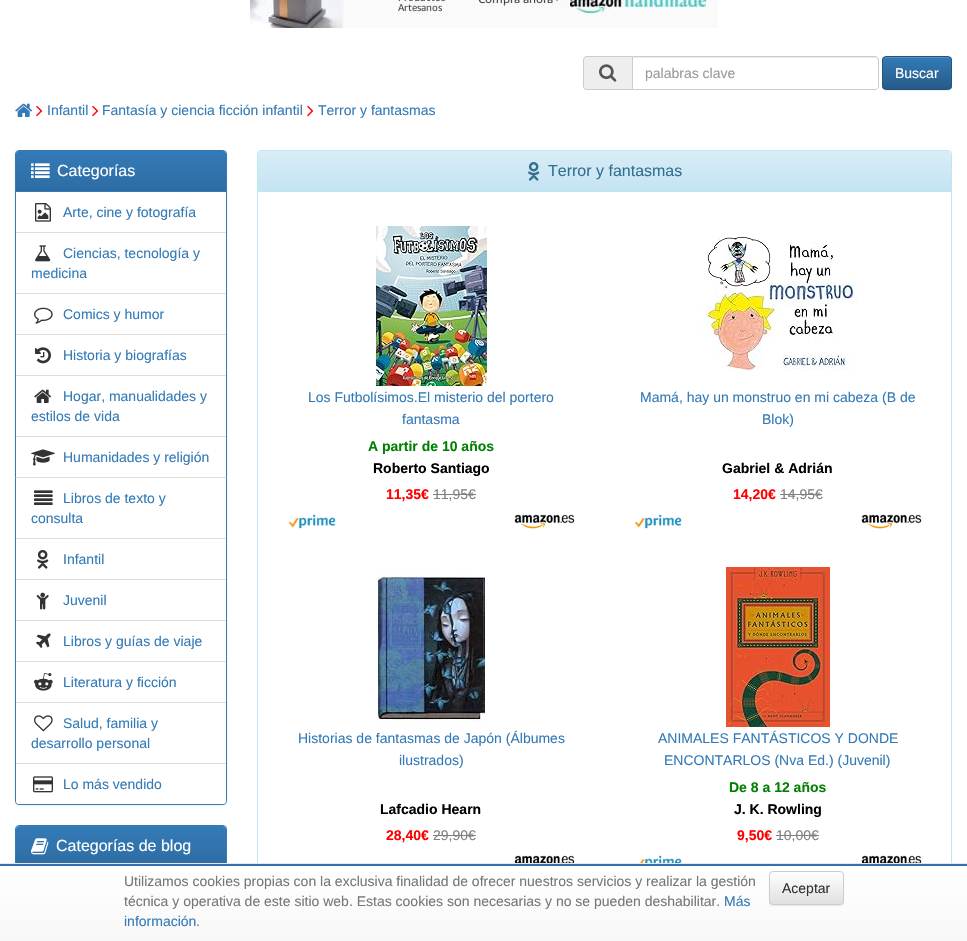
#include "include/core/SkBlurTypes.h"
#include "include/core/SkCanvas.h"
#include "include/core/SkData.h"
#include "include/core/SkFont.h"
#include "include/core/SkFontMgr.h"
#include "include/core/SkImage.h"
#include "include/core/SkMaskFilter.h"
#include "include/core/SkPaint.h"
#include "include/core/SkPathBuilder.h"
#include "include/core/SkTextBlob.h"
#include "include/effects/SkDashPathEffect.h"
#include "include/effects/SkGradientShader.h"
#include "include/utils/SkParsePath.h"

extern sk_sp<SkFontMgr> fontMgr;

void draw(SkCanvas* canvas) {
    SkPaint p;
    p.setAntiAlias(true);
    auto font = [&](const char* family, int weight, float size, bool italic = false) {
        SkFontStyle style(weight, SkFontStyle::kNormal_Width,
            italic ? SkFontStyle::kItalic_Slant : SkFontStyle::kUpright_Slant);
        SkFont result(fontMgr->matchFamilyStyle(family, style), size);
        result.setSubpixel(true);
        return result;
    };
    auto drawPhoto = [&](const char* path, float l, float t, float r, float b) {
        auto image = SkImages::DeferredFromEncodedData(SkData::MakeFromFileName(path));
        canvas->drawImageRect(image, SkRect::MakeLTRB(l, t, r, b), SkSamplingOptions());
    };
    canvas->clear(0xFFFFFFFF);
    drawPhoto("media/1.png", 250, 0, 718, 28);
    p.setColor(0xFFEEEEEE);
    canvas->drawPath(SkPathBuilder().moveTo(587, 56).lineTo(632, 56).lineTo(632, 90).lineTo(587, 90).cubicTo(585, 90, 583, 88, 583, 86).lineTo(583, 60).cubicTo(583, 58, 585, 56, 587, 56).close().detach(), p);
    p.setColor(0xFFCCCCCC);
    canvas->drawPath(SkPathBuilder(SkPathFillType::kEvenOdd).moveTo(587, 56).lineTo(632, 56).lineTo(632, 90).lineTo(587, 90).cubicTo(585, 90, 583, 88, 583, 86).lineTo(583, 60).cubicTo(583, 58, 585, 56, 587, 56).close().moveTo(587, 57).lineTo(632, 57).lineTo(632, 89).lineTo(587, 89).cubicTo(585, 89, 584, 88, 584, 86).lineTo(584, 60).cubicTo(584, 58, 585, 57, 587, 57).close().detach(), p);
    drawPhoto("media/2.png", 599, 64, 617, 82);
    p.setColor(0xFFECECEC);
    canvas->drawPath(SkPathBuilder().moveTo(633, 58).lineTo(875, 58).cubicTo(877, 58, 878, 59, 878, 61).cubicTo(878, 59, 877, 57, 875, 57).lineTo(633, 57).close().detach(), p);
    p.setStyle(SkPaint::kStroke_Style);
    p.setStrokeWidth(1);
    p.setColor(0xFFCCCCCC);
    canvas->drawPath(SkPathBuilder().moveTo(632.5f, 56.5f).lineTo(875, 56.5f).cubicTo(877, 56.5f, 878.5f, 58, 878.5f, 60).lineTo(878.5f, 86).cubicTo(878.5f, 88, 877, 89.5f, 875, 89.5f).lineTo(632.5f, 89.5f).close().detach(), p);
    auto font1 = font("Liberation Sans", 400, 14);
    p.setStyle(SkPaint::kFill_Style);
    p.setColor(0xFF999999);
    canvas->drawString("palabras clave", 645, 78, font1, p);
    p.setColor(0x12000000);
    p.setMaskFilter(SkMaskFilter::MakeBlur(kNormal_SkBlurStyle, 0.5f));
    canvas->drawRoundRect(SkRect::MakeLTRB(882, 57, 952, 91), 4, 4, p);
    p.setMaskFilter(nullptr);
    canvas->save();
    canvas->clipPath(SkPathBuilder().moveTo(886, 56).lineTo(948, 56).cubicTo(950, 56, 952, 58, 952, 60).lineTo(952, 86).cubicTo(952, 88, 950, 90, 948, 90).lineTo(886, 90).cubicTo(884, 90, 882, 88, 882, 86).lineTo(882, 60).cubicTo(882, 58, 884, 56, 886, 56).close().detach(), true);
    {
        const SkColor colors[] = {0xFF337AB7, 0xFF265A88};
        const float stops[] = {0, 1};
        const SkPoint ends[] = {{917, 57}, {917, 89}};
        p.setShader(SkGradientShader::MakeLinear(ends, colors, stops, 2, SkTileMode::kClamp));
        p.setAlpha(255);
    }
    canvas->drawRect(SkRect::MakeLTRB(882, 57, 952, 89), p);
    canvas->restore();
    p.setShader(nullptr);
    p.setColor(0xFF528EC1);
    canvas->drawPath(SkPathBuilder().moveTo(886, 58).lineTo(948, 58).cubicTo(950, 58, 951, 59, 951, 61).cubicTo(951, 54, 942, 57, 938, 57).lineTo(896, 57).cubicTo(892, 57, 883, 54, 883, 61).cubicTo(883, 59, 884, 58, 886, 58).close().detach(), p);
    p.setStyle(SkPaint::kStroke_Style);
    p.setColor(0xFF245580);
    canvas->drawRoundRect(SkRect::MakeLTRB(882.5f, 56.5f, 951.5f, 89.5f), 3.5f, 3.5f, p);
    p.setStyle(SkPaint::kFill_Style);
    p.setColor(0xFFFFFFFF);
    canvas->drawString("Buscar", 895, 78, font1, p);
    drawPhoto("media/3.png", 15, 103, 32, 117);
    drawPhoto("media/4.png", 36, 105, 43, 117);
    p.setColor(0xFF337AB7);
    canvas->drawString("Infantil", 47, 115, font1, p);
    drawPhoto("media/4.png", 92, 105, 99, 117);
    canvas->drawString("Fantasía y ciencia ficción infantil", 102, 115, font1, p);
    drawPhoto("media/4.png", 307, 105, 314, 117);
    canvas->drawString("Terror y fantasmas", 318, 115, font1, p);
    p.setColor(0x0D000000);
    p.setMaskFilter(SkMaskFilter::MakeBlur(kNormal_SkBlurStyle, 1));
    canvas->drawRoundRect(SkRect::MakeLTRB(15, 151, 227, 806), 4, 4, p);
    p.setMaskFilter(nullptr);
    p.setColor(0xFFFFFFFF);
    canvas->drawRoundRect(SkRect::MakeLTRB(15.5f, 150.5f, 226.5f, 804.5f), 3.5f, 3.5f, p);
    p.setStyle(SkPaint::kStroke_Style);
    p.setColor(0xFF337AB7);
    canvas->drawRoundRect(SkRect::MakeLTRB(15.5f, 150.5f, 226.5f, 804.5f), 3.5f, 3.5f, p);
    p.setStyle(SkPaint::kFill_Style);
    canvas->drawPath(SkPathBuilder().moveTo(19, 151).lineTo(223, 151).cubicTo(224.5f, 151, 226, 152.5f, 226, 154).lineTo(226, 192).lineTo(16, 192).lineTo(16, 154).cubicTo(16, 152.5f, 17.5f, 151, 19, 151).close().detach(), p);
    {
        const SkColor colors[] = {0xFF337AB7, 0xFF2E6DA4};
        const float stops[] = {0, 1};
        const SkPoint ends[] = {{121, 151}, {121, 191}};
        p.setShader(SkGradientShader::MakeLinear(ends, colors, stops, 2, SkTileMode::kClamp));
        p.setAlpha(255);
    }
    canvas->drawPath(SkPathBuilder().moveTo(19, 151).lineTo(223, 151).cubicTo(224.5f, 151, 226, 152.5f, 226, 154).lineTo(226, 191).lineTo(16, 191).lineTo(16, 154).cubicTo(16, 152.5f, 17.5f, 151, 19, 151).close().detach(), p);
    drawPhoto("media/5.png", 31, 163, 50, 178);
    auto font2 = font("Liberation Sans", 400, 16);
    p.setShader(nullptr);
    p.setColor(0xFFFFFFFF);
    canvas->drawString("Categorías", 57, 176, font2, p);
    p.setColor(0xFFDDDDDD);
    canvas->drawRect(SkRect::MakeLTRB(16, 232, 226, 233), p);
    drawPhoto("media/6.png", 35, 203, 51, 222);
    p.setColor(0xFF337AB7);
    canvas->drawString("Arte, cine y fotografía", 63, 217, font1, p);
    p.setColor(0xFFDDDDDD);
    canvas->drawRect(SkRect::MakeLTRB(16, 293, 226, 294), p);
    drawPhoto("media/7.png", 35, 245, 51, 262);
    p.setColor(0xFF337AB7);
    canvas->drawString("Ciencias, tecnología y", 63, 258, font1, p);
    canvas->drawString("medicina", 31, 278, font1, p);
    p.setColor(0xFFDDDDDD);
    canvas->drawRect(SkRect::MakeLTRB(16, 334, 226, 335), p);
    drawPhoto("media/8.png", 34, 307, 53, 324);
    p.setColor(0xFF337AB7);
    canvas->drawString("Comics y humor", 63, 319, font1, p);
    p.setColor(0xFFDDDDDD);
    canvas->drawRect(SkRect::MakeLTRB(16, 375, 226, 376), p);
    drawPhoto("media/9.png", 35, 347, 51, 364);
    p.setColor(0xFF337AB7);
    canvas->drawString("Historia y biografías", 63, 360, font1, p);
    p.setColor(0xFFDDDDDD);
    canvas->drawRect(SkRect::MakeLTRB(16, 436, 226, 437), p);
    drawPhoto("media/10.png", 34, 389, 51, 403);
    p.setColor(0xFF337AB7);
    canvas->drawString("Hogar, manualidades y", 63, 401, font1, p);
    canvas->drawString("estilos de vida", 31, 421, font1, p);
    p.setColor(0xFFDDDDDD);
    canvas->drawRect(SkRect::MakeLTRB(16, 477, 226, 478), p);
    drawPhoto("media/11.png", 31, 449, 55, 466);
    p.setColor(0xFF337AB7);
    canvas->drawString("Humanidades y religión", 63, 462, font1, p);
    p.setColor(0xFFDDDDDD);
    canvas->drawRect(SkRect::MakeLTRB(16, 538, 226, 539), p);
    drawPhoto("media/12.png", 34, 490, 53, 505);
    p.setColor(0xFF337AB7);
    canvas->drawString("Libros de texto y", 63, 503, font1, p);
    canvas->drawString("consulta", 31, 523, font1, p);
    p.setColor(0xFFDDDDDD);
    canvas->drawRect(SkRect::MakeLTRB(16, 579, 226, 580), p);
    drawPhoto("media/13.png", 37, 550, 49, 569);
    p.setColor(0xFF337AB7);
    canvas->drawString("Infantil", 63, 564, font1, p);
    p.setColor(0xFFDDDDDD);
    canvas->drawRect(SkRect::MakeLTRB(16, 620, 226, 621), p);
    drawPhoto("media/14.png", 36, 592, 49, 610);
    p.setColor(0xFF337AB7);
    canvas->drawString("Juvenil", 63, 605, font1, p);
    p.setColor(0xFFDDDDDD);
    canvas->drawRect(SkRect::MakeLTRB(16, 661, 226, 662), p);
    drawPhoto("media/15.png", 36, 633, 51, 648);
    p.setColor(0xFF337AB7);
    canvas->drawString("Libros y guías de viaje", 63, 646, font1, p);
    p.setColor(0xFFDDDDDD);
    canvas->drawRect(SkRect::MakeLTRB(16, 702, 226, 703), p);
    drawPhoto("media/16.png", 34, 673, 53, 691);
    p.setColor(0xFF337AB7);
    canvas->drawString("Literatura y ficción", 63, 687, font1, p);
    drawPhoto("media/17.png", 34, 715, 53, 732);
    canvas->drawString("Salud, familia y", 63, 728, font1, p);
    canvas->drawString("desarrollo personal", 31, 748, font1, p);
    p.setColor(0xFFFFFFFF);
    canvas->drawPath(SkPathBuilder().moveTo(16, 763).lineTo(226, 763).lineTo(226, 801).cubicTo(226, 802.5f, 224.5f, 804, 223, 804).lineTo(19, 804).cubicTo(17.5f, 804, 16, 802.5f, 16, 801).close().detach(), p);
    p.setColor(0xFFDDDDDD);
    canvas->drawRect(SkRect::MakeLTRB(16, 763, 226, 764), p);
    drawPhoto("media/18.png", 33, 776, 53, 793);
    p.setColor(0xFF337AB7);
    canvas->drawString("Lo más vendido", 63, 789, font1, p);
    p.setStyle(SkPaint::kStroke_Style);
    canvas->drawRoundRect(SkRect::MakeLTRB(15.5f, 825.5f, 226.5f, 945.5f), 3.5f, 3.5f, p);
    p.setStyle(SkPaint::kFill_Style);
    {
        const SkColor colors[] = {0xFF337AB7, 0xFF2E6DA4};
        const float stops[] = {0, 1};
        const SkPoint ends[] = {{121, 826}, {121, 866}};
        p.setShader(SkGradientShader::MakeLinear(ends, colors, stops, 2, SkTileMode::kClamp));
        p.setAlpha(255);
    }
    canvas->drawPath(SkPathBuilder().moveTo(19, 826).lineTo(223, 826).cubicTo(224.5f, 826, 226, 827.5f, 226, 829).lineTo(226, 866).lineTo(16, 866).lineTo(16, 829).cubicTo(16, 827.5f, 17.5f, 826, 19, 826).close().detach(), p);
    drawPhoto("media/19.png", 31, 838, 49, 855);
    p.setShader(nullptr);
    p.setColor(0xFFFFFFFF);
    canvas->drawString("Categorías de blog", 56, 851, font2, p);
    p.setStyle(SkPaint::kStroke_Style);
    p.setColor(0xFFBCE8F1);
    canvas->drawRoundRect(SkRect::MakeLTRB(257.5f, 150.5f, 951.5f, 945.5f), 3.5f, 3.5f, p);
    p.setStyle(SkPaint::kFill_Style);
    {
        const SkColor colors[] = {0xFFD9EDF7, 0xFFC4E3F3};
        const float stops[] = {0, 1};
        const SkPoint ends[] = {{605, 151}, {605, 191}};
        p.setShader(SkGradientShader::MakeLinear(ends, colors, stops, 2, SkTileMode::kClamp));
        p.setAlpha(255);
    }
    canvas->drawPath(SkPathBuilder().moveTo(261, 151).lineTo(948, 151).cubicTo(949.5f, 151, 951, 152.5f, 951, 154).lineTo(951, 191).lineTo(258, 191).lineTo(258, 154).cubicTo(258, 152.5f, 259.5f, 151, 261, 151).close().detach(), p);
    p.setShader(nullptr);
    p.setColor(0xFFBCE8F1);
    canvas->drawRect(SkRect::MakeLTRB(258, 191, 951, 192), p);
    drawPhoto("media/20.png", 528, 162, 540, 181);
    p.setColor(0xFF31708F);
    canvas->drawString("Terror y fantasmas", 548, 176, font2, p);
    drawPhoto("media/21.png", 376, 226, 487, 386);
    p.setColor(0xFF337AB7);
    canvas->drawString("Los Futbolísimos.El misterio del portero", 308, 402, font1, p);
    canvas->drawString("fantasma", 402, 424, font1, p);
    auto font3 = font("Liberation Sans", 700, 14);
    p.setColor(0xFF008000);
    canvas->drawString("A partir de 10 años", 368, 451, font3, p);
    p.setColor(0xFF000000);
    canvas->drawString("Roberto Santiago", 373, 473, font3, p);
    p.setColor(0xFFFF0000);
    canvas->drawString("11,35€", 386, 499, font3, p);
    p.setColor(0xFF808080);
    canvas->drawString("11,95€", 433, 499, font1, p);
    canvas->drawRect(SkRect::MakeLTRB(433, 494, 476, 495), p);
    drawPhoto("media/22.png", 288, 514, 336, 529);
    drawPhoto("media/23.png", 514, 514, 575, 529);
    drawPhoto("media/24.png", 698, 234, 858, 371);
    p.setColor(0xFF337AB7);
    canvas->drawString("Mamá, hay un monstruo en mi cabeza (B de", 640, 402, font1, p);
    canvas->drawString("Blok)", 762, 424, font1, p);
    p.setColor(0xFF000000);
    canvas->drawString("Gabriel & Adrián", 722, 473, font3, p);
    p.setColor(0xFFFF0000);
    canvas->drawString("14,20€", 733, 499, font3, p);
    p.setColor(0xFF808080);
    canvas->drawString("14,95€", 780, 499, font1, p);
    canvas->drawRect(SkRect::MakeLTRB(780, 494, 822, 495), p);
    drawPhoto("media/22.png", 634, 514, 682, 529);
    drawPhoto("media/23.png", 861, 514, 922, 529);
    drawPhoto("media/25.png", 378, 567, 485, 727);
    p.setColor(0xFF337AB7);
    canvas->drawString("Historias de fantasmas de Japón (Álbumes", 298, 743, font1, p);
    canvas->drawString("ilustrados)", 399, 765, font1, p);
    p.setColor(0xFF000000);
    canvas->drawString("Lafcadio Hearn", 380, 814, font3, p);
    p.setColor(0xFFFF0000);
    canvas->drawString("28,40€", 386, 840, font3, p);
    p.setColor(0xFF808080);
    canvas->drawString("29,90€", 433, 840, font1, p);
    canvas->drawRect(SkRect::MakeLTRB(433, 835, 476, 836), p);
    drawPhoto("media/26.png", 514, 855, 575, 863);
    drawPhoto("media/27.png", 726, 567, 830, 727);
    p.setColor(0xFF337AB7);
    canvas->drawString("ANIMALES FANTÁSTICOS Y DONDE", 658, 743, font1, p);
    canvas->drawString("ENCONTARLOS (Nva Ed.) (Juvenil)", 664, 765, font1, p);
    p.setColor(0xFF008000);
    canvas->drawString("De 8 a 12 años", 729, 792, font3, p);
    p.setColor(0xFF000000);
    canvas->drawString("J. K. Rowling", 734, 814, font3, p);
    p.setColor(0xFFFF0000);
    canvas->drawString("9,50€", 737, 840, font3, p);
    p.setColor(0xFF808080);
    canvas->drawString("10,00€", 776, 840, font1, p);
    canvas->drawRect(SkRect::MakeLTRB(776, 835, 819, 836), p);
    drawPhoto("media/28.png", 640, 855, 682, 863);
    drawPhoto("media/26.png", 861, 855, 922, 863);
    {
        const SkColor colors[] = {0xFFFFFFFF, 0xFFF8F8F8};
        const float stops[] = {0, 1};
        const SkPoint ends[] = {{484, 864}, {484, 941}};
        p.setShader(SkGradientShader::MakeLinear(ends, colors, stops, 2, SkTileMode::kClamp));
        p.setAlpha(255);
    }
    canvas->drawRect(SkRect::MakeLTRB(0, 866, 967, 941), p);
    p.setShader(nullptr);
    p.setColor(0xFFE7E7E7);
    canvas->drawRect(SkRect::MakeLTRB(0, 863, 967, 864), p);
    p.setColor(0xFF3073AD);
    canvas->drawRect(SkRect::MakeLTRB(0, 864, 967, 866), p);
    p.setColor(0xFF777777);
    canvas->drawString("Utilizamos cookies propias con la exclusiva finalidad de ofrecer nuestros servicios y realizar la gestión", 124, 886, font1, p);
    canvas->drawString("técnica y operativa de este sitio web. Estas cookies son necesarias y no se pueden deshabilitar.", 124, 906, font1, p);
    p.setColor(0xFF337AB7);
    canvas->drawString("Más", 724, 906, font1, p);
    canvas->drawString("información", 124, 926, font1, p);
    p.setColor(0xFF777777);
    canvas->drawString(".", 196, 926, font1, p);
    p.setColor(0x12000000);
    p.setMaskFilter(SkMaskFilter::MakeBlur(kNormal_SkBlurStyle, 0.5f));
    canvas->drawRoundRect(SkRect::MakeLTRB(769, 872, 844, 906), 4, 4, p);
    p.setMaskFilter(nullptr);
    canvas->save();
    canvas->clipPath(SkPathBuilder().moveTo(773, 871).lineTo(840, 871).cubicTo(842, 871, 844, 873, 844, 875).lineTo(844, 901).cubicTo(844, 903, 842, 905, 840, 905).lineTo(773, 905).cubicTo(771, 905, 769, 903, 769, 901).lineTo(769, 875).cubicTo(769, 873, 771, 871, 773, 871).close().detach(), true);
    {
        const SkColor colors[] = {0xFFFFFFFF, 0xFFE0E0E0};
        const float stops[] = {0, 1};
        const SkPoint ends[] = {{807, 872}, {807, 904}};
        p.setShader(SkGradientShader::MakeLinear(ends, colors, stops, 2, SkTileMode::kClamp));
        p.setAlpha(255);
    }
    canvas->drawRect(SkRect::MakeLTRB(769, 872, 844, 904), p);
    canvas->restore();
    p.setStyle(SkPaint::kStroke_Style);
    p.setShader(nullptr);
    p.setColor(0xFFCCCCCC);
    canvas->drawRoundRect(SkRect::MakeLTRB(769.5f, 871.5f, 843.5f, 904.5f), 3.5f, 3.5f, p);
    p.setStyle(SkPaint::kFill_Style);
    p.setColor(0xFF333333);
    canvas->drawString("Aceptar", 782, 893, font1, p);
}
